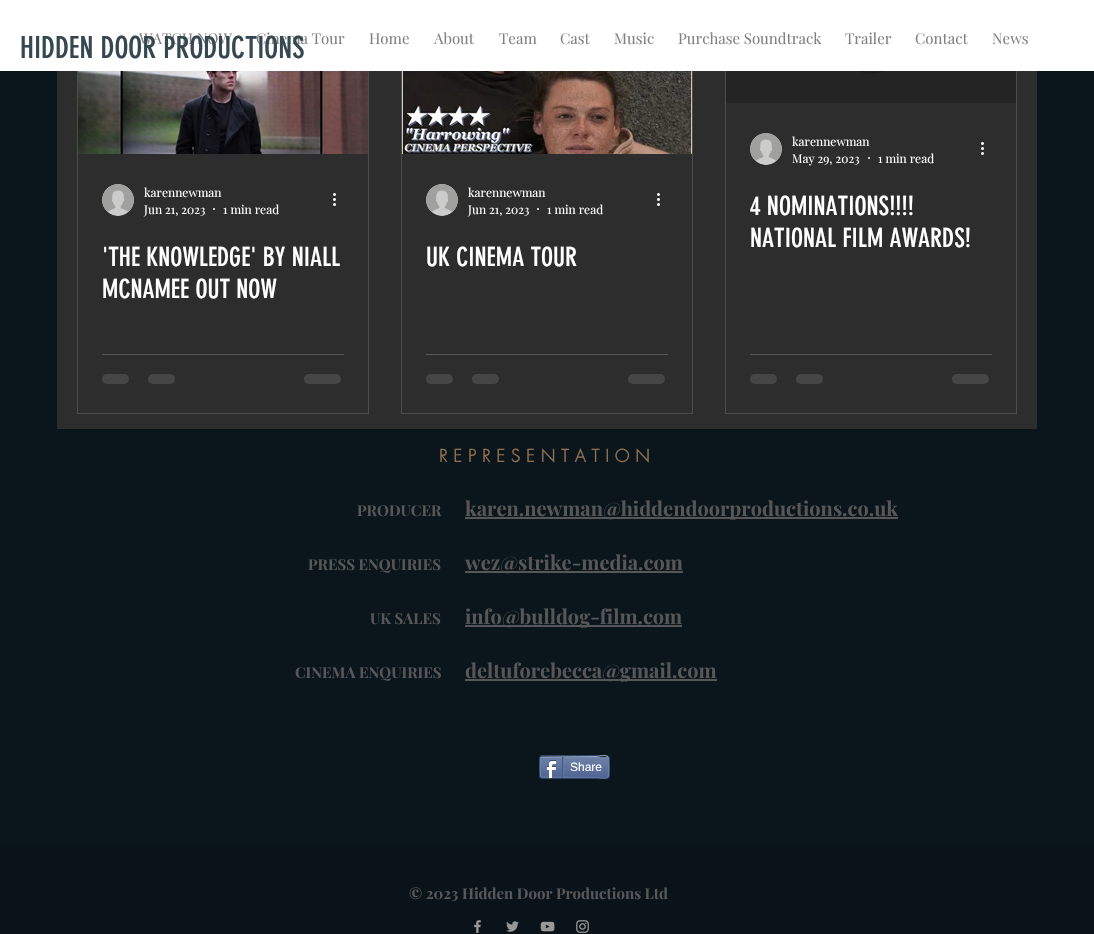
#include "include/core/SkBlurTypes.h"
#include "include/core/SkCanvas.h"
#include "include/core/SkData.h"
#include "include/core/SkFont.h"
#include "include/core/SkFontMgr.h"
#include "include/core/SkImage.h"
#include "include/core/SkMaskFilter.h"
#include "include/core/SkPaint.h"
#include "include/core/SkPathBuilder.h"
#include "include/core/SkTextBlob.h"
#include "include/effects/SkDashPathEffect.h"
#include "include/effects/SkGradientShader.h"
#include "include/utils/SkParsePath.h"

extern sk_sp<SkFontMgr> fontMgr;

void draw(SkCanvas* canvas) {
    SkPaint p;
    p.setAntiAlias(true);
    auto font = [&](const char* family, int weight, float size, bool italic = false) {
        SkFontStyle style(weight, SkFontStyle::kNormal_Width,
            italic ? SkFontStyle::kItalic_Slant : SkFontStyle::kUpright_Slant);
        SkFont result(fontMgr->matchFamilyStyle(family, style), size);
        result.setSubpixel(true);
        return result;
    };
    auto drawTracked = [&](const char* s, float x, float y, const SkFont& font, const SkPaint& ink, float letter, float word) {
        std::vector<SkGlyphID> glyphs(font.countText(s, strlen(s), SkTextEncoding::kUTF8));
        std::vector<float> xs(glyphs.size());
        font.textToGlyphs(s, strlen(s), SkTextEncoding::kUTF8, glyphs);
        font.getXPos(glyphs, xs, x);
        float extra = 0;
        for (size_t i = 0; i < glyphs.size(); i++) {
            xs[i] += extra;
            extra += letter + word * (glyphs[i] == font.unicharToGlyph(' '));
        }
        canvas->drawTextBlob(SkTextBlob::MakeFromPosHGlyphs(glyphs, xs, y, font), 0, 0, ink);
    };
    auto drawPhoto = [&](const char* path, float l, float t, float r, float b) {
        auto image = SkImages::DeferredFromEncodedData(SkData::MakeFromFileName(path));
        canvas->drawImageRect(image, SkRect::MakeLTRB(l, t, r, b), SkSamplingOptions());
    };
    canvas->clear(0xFF0A151C);
    p.setColor(0xFF2D2D2D);
    canvas->drawRect(SkRect::MakeLTRB(57, 71, 1037, 429), p);
    p.setStyle(SkPaint::kStroke_Style);
    p.setStrokeWidth(1);
    p.setColor(0xFF4D4D4D);
    canvas->drawRect(SkRect::MakeLTRB(77.5f, -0.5f, 368.5f, 413.5f), p);
    canvas->drawRect(SkRect::MakeLTRB(401.5f, -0.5f, 692.5f, 413.5f), p);
    canvas->drawRect(SkRect::MakeLTRB(725.5f, -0.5f, 1016.5f, 413.5f), p);
    p.setStyle(SkPaint::kFill_Style);
    p.setColor(0xFF242424);
    canvas->drawRect(SkRect::MakeLTRB(726, 71, 1016, 103), p);
    p.setColor(0xFF1C1C1C);
    canvas->drawCircle(871, 44, 30, p);
    p.setColor(0xFFFFFFFF);
    canvas->drawRect(SkRect::MakeLTRB(0, 0, 1094, 71), p);
    auto font1 = font("Playfair Display", 400, 15);
    p.setColor(0xFF818181);
    {
        const struct { const char* s; float x, y; } items[] = {
            {"WATCH NOW", 139, 44},
            {"Cinema Tour", 256, 44},
            {"Home", 369, 44},
            {"About", 434, 44},
            {"Team", 499, 44},
            {"Cast", 560, 44},
            {"Music", 614, 44},
            {"Purchase Soundtrack", 678, 44},
            {"Trailer", 845, 44},
            {"Contact", 915, 44},
            {"News", 992, 44},
        };
        for (auto [s, x, y] : items) {
            canvas->drawString(s, x, y, font1, p);
        }
    }
    auto font2 = font("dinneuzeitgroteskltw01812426", 400, 30);
    p.setColor(0xFF354751);
    canvas->drawString("HIDDEN DOOR PRODUCTIONS", 20, 58, font2, p);
    drawPhoto("media/1.png", 78, 71, 368, 154);
    drawPhoto("media/2.png", 102, 184, 134, 216);
    auto font3 = font("Playfair Display", 400, 12);
    p.setColor(0xFFFFFFFF);
    canvas->drawString("karennewman", 144, 197, font3, p);
    canvas->drawString("Jun 21, 2023", 144, 214, font3, p);
    canvas->drawCircle(214, 209, 1, p);
    canvas->drawString("1 min read", 223, 214, font3, p);
    drawPhoto("media/3.png", 333, 193, 336, 206);
    auto font4 = font("dinneuzeitgroteskltw01812426", 400, 26);
    canvas->drawString("'THE KNOWLEDGE' BY NIALL", 102, 266, font4, p);
    canvas->drawString("MCNAMEE OUT NOW", 102, 298, font4, p);
    p.setColor(0xFF575757);
    canvas->drawRect(SkRect::MakeLTRB(102, 354, 344, 355), p);
    p.setColor(0xFF464646);
    canvas->drawRoundRect(SkRect::MakeLTRB(102, 374, 129, 384), 5, 5, p);
    canvas->drawRoundRect(SkRect::MakeLTRB(148, 374, 175, 384), 5, 5, p);
    canvas->drawRoundRect(SkRect::MakeLTRB(304, 374, 341, 384), 5, 5, p);
    drawPhoto("media/4.png", 402, 71, 692, 154);
    drawPhoto("media/2.png", 426, 184, 458, 216);
    p.setColor(0xFFFFFFFF);
    canvas->drawString("karennewman", 468, 197, font3, p);
    canvas->drawString("Jun 21, 2023", 468, 214, font3, p);
    canvas->drawCircle(538, 209, 1, p);
    canvas->drawString("1 min read", 547, 214, font3, p);
    drawPhoto("media/3.png", 657, 193, 660, 206);
    canvas->drawString("UK CINEMA TOUR", 426, 266, font4, p);
    p.setColor(0xFF575757);
    canvas->drawRect(SkRect::MakeLTRB(426, 354, 668, 355), p);
    p.setColor(0xFF464646);
    canvas->drawRoundRect(SkRect::MakeLTRB(426, 374, 453, 384), 5, 5, p);
    canvas->drawRoundRect(SkRect::MakeLTRB(472, 374, 499, 384), 5, 5, p);
    canvas->drawRoundRect(SkRect::MakeLTRB(628, 374, 665, 384), 5, 5, p);
    drawPhoto("media/2.png", 750, 133, 782, 165);
    p.setColor(0xFFFFFFFF);
    canvas->drawString("karennewman", 792, 146, font3, p);
    canvas->drawString("May 29, 2023", 792, 163, font3, p);
    canvas->drawCircle(869, 158, 1, p);
    canvas->drawString("1 min read", 878, 163, font3, p);
    drawPhoto("media/3.png", 981, 142, 984, 155);
    canvas->drawString("4 NOMINATIONS!!!!", 750, 215, font4, p);
    canvas->drawString("NATIONAL FILM AWARDS!", 750, 247, font4, p);
    p.setColor(0xFF575757);
    canvas->drawRect(SkRect::MakeLTRB(750, 354, 992, 355), p);
    p.setColor(0xFF464646);
    canvas->drawRoundRect(SkRect::MakeLTRB(750, 374, 777, 384), 5, 5, p);
    canvas->drawRoundRect(SkRect::MakeLTRB(796, 374, 823, 384), 5, 5, p);
    canvas->drawRoundRect(SkRect::MakeLTRB(952, 374, 989, 384), 5, 5, p);
    auto font5 = font("futura", 700, 17);
    p.setColor(0xFF917151);
    drawTracked("REPRESENTATION", 439, 462, font5, p, 6, 0);
    auto font6 = font("Playfair Display", 700, 15);
    p.setColor(0xFF575757);
    {
        const struct { const char* s; float x, y; } items[] = {
            {"PRODUCER", 357, 516},
            {"PRESS ENQUIRIES", 308, 570},
            {"UK SALES", 370, 624},
            {"CINEMA ENQUIRIES", 295, 678},
        };
        for (auto [s, x, y] : items) {
            canvas->drawString(s, x, y, font6, p);
        }
    }
    canvas->drawRect(SkRect::MakeLTRB(465, 517, 898, 519), p);
    auto font7 = font("Playfair Display", 700, 20);
    canvas->drawString("karen.newman@hiddendoorproductions.co.uk", 465, 516, font7, p);
    canvas->drawRect(SkRect::MakeLTRB(465, 571, 683, 573), p);
    canvas->drawString("wez@strike-media.com", 465, 570, font7, p);
    canvas->drawRect(SkRect::MakeLTRB(465, 625, 682, 627), p);
    canvas->drawString("info@bulldog-film.com", 465, 624, font7, p);
    canvas->drawRect(SkRect::MakeLTRB(465, 679, 717, 681), p);
    canvas->drawString("deltuforebecca@gmail.com", 465, 678, font7, p);
    p.setStyle(SkPaint::kStroke_Style);
    p.setColor(0xFF2D4565);
    canvas->drawRoundRect(SkRect::MakeLTRB(539.5f, 755.5f, 609.5f, 778.5f), 2.5f, 2.5f, p);
    drawPhoto("media/5.png", 540, 757, 609, 778);
    p.setColor(0xFF9AABC6);
    canvas->drawPath(SkPathBuilder().moveTo(541, 757).lineTo(596, 756.5f).cubicTo(600, 756.5f, 605, 754, 608, 757).detach(), p);
    p.setColor(0xFF6F83AD);
    canvas->drawPath(SkPathBuilder().moveTo(608, 757).cubicTo(609, 757.5f, 609, 776.5f, 608, 777).detach(), p);
    p.setColor(0xFF6176A3);
    canvas->drawPath(SkPathBuilder().moveTo(608, 777).cubicTo(605, 780, 600, 777.5f, 596, 777.5f).lineTo(541, 777).detach(), p);
    p.setColor(0xFF6F83AD);
    canvas->drawPath(SkPathBuilder().moveTo(541, 777).cubicTo(540, 776.5f, 540, 757.5f, 541, 757).detach(), p);
    drawPhoto("media/6.png", 546, 760, 556, 778);
    p.setStyle(SkPaint::kFill_Style);
    p.setColor(0xFF425E85);
    canvas->drawRect(SkRect::MakeLTRB(562, 757, 563, 778), p);
    auto font8 = font("Liberation Sans", 400, 12);
    p.setColor(0xFFFFFFFF);
    canvas->drawString("Share", 570, 771, font8, p);
    p.setColor(0xFF6176A3);
    canvas->drawRect(SkRect::MakeLTRB(563, 757, 564, 777), p);
    p.setColor(0xFF091319);
    canvas->drawRect(SkRect::MakeLTRB(0, 846, 1094, 934), p);
    p.setColor(0xFF575757);
    canvas->drawString("© 2023 Hidden Door Productions Ltd", 409, 899, font6, p);
    drawPhoto("media/7.png", 474, 920, 481, 933);
    drawPhoto("media/8.png", 506, 921, 519, 932);
    drawPhoto("media/9.png", 540, 921, 555, 932);
    drawPhoto("media/10.png", 576, 920, 589, 933);
}
